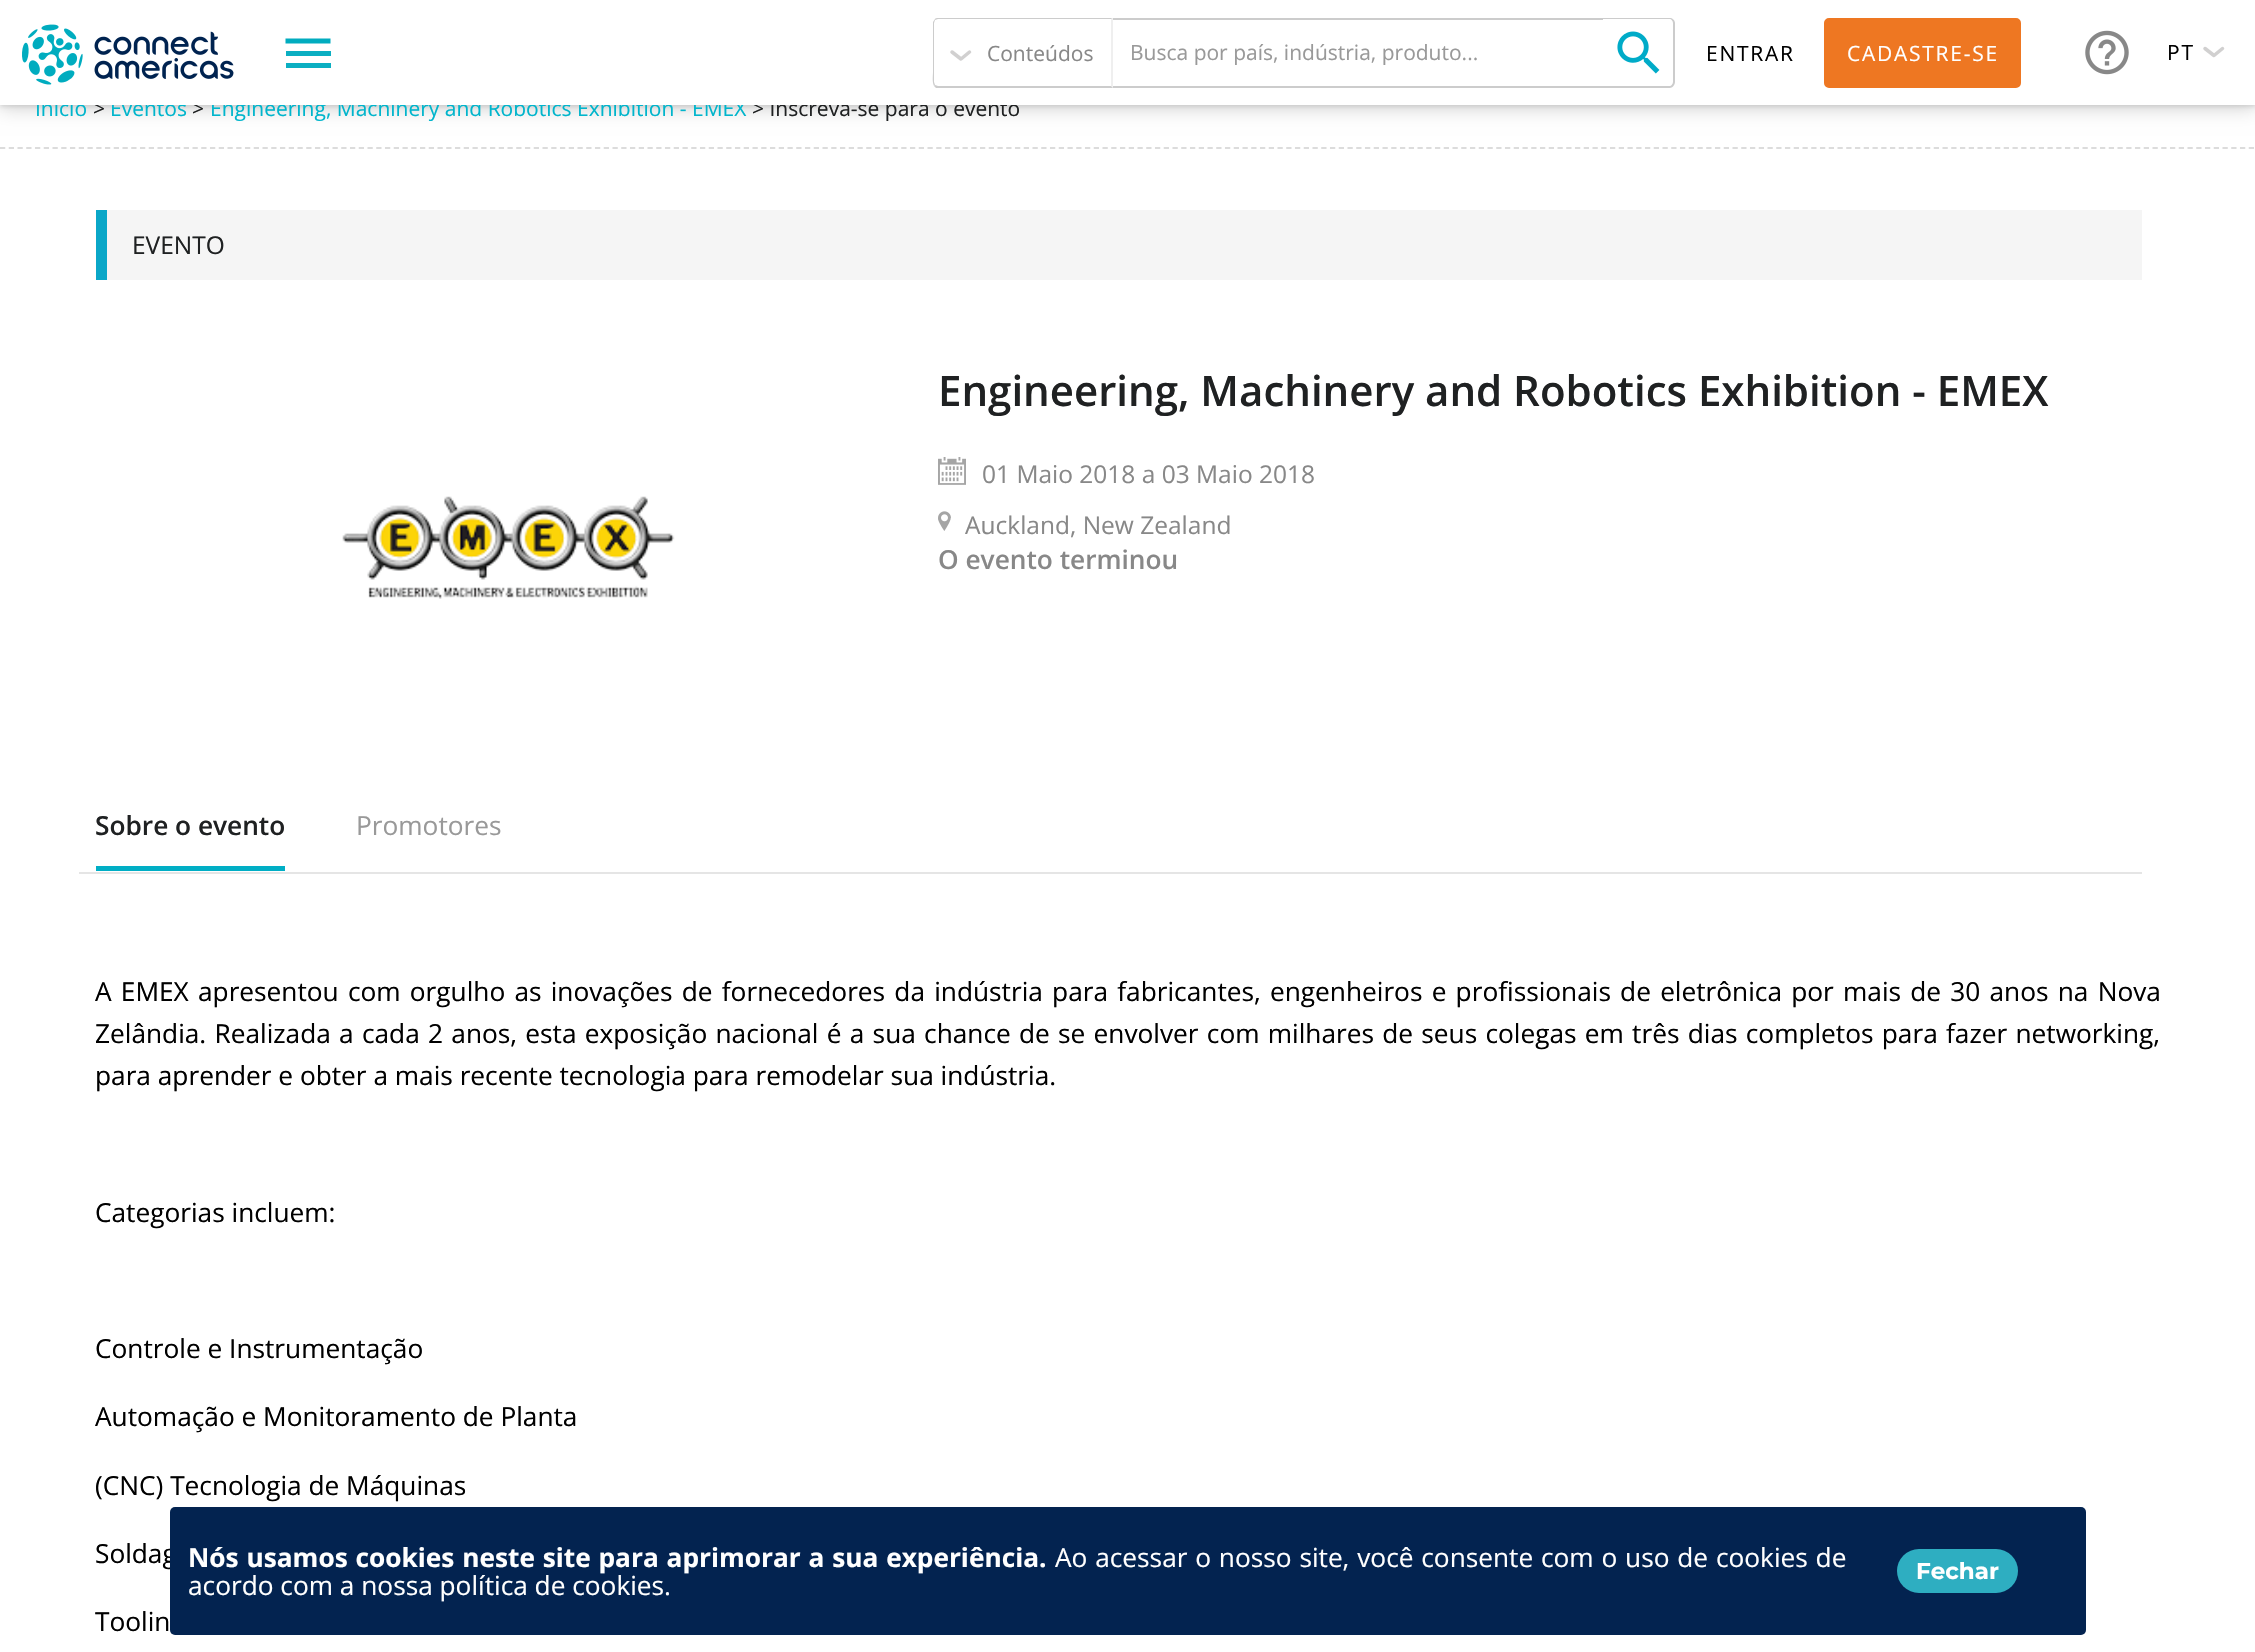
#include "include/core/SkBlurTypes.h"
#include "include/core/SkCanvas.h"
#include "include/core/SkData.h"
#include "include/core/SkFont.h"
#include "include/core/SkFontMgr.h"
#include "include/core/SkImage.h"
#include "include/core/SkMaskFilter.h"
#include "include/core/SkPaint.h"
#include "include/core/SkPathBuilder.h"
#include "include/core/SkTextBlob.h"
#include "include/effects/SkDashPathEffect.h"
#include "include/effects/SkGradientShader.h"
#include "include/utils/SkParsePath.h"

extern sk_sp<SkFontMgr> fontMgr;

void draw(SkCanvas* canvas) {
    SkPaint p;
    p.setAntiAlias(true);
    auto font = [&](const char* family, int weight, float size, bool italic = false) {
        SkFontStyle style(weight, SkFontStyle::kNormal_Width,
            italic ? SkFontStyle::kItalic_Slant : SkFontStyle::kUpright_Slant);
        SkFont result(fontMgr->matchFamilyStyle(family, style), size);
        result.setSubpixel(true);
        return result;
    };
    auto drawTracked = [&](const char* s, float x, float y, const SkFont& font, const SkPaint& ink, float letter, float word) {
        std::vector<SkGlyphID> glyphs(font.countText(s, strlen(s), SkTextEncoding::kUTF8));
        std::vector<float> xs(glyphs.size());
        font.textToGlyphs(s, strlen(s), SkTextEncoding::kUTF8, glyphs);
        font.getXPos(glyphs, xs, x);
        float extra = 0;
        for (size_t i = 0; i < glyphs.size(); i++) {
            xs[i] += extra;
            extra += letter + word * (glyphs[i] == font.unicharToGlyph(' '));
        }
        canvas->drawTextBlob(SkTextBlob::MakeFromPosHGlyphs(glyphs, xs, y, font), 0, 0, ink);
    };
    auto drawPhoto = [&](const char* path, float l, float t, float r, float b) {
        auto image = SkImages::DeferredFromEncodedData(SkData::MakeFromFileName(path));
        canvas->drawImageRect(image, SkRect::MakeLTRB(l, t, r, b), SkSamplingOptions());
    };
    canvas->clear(0xFFFFFFFF);
    p.setColor(0x1A000000);
    p.setMaskFilter(SkMaskFilter::MakeBlur(kNormal_SkBlurStyle, 2));
    canvas->drawRect(SkRect::MakeLTRB(0, 2, 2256, 107), p);
    p.setMaskFilter(nullptr);
    p.setColor(0x29000000);
    p.setMaskFilter(SkMaskFilter::MakeBlur(kNormal_SkBlurStyle, 9));
    canvas->drawRect(SkRect::MakeLTRB(0, 4, 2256, 109), p);
    p.setMaskFilter(nullptr);
    auto font1 = font("Open Sans", 400, 21);
    p.setColor(0xFF00B5CC);
    canvas->drawString("Início", 35, 116, font1, p);
    p.setColor(0xFF1F2122);
    canvas->drawString(">", 93, 116, font1, p);
    p.setColor(0xFF00B5CC);
    canvas->drawString("Eventos", 110, 116, font1, p);
    p.setColor(0xFF1F2122);
    canvas->drawString(">", 192, 116, font1, p);
    p.setColor(0xFF00B5CC);
    canvas->drawString("Engineering, Machinery and Robotics Exhibition - EMEX", 210, 116, font1, p);
    p.setColor(0xFF1F2122);
    canvas->drawString("> Inscreva-se para o evento", 752, 116, font1, p);
    p.setColor(0xFFFFFFFF);
    canvas->drawRect(SkRect::MakeLTRB(0, 0, 2255, 105), p);
    drawPhoto("media/1.png", 22, 24, 234, 85);
    p.setStyle(SkPaint::kStroke_Style);
    p.setStrokeWidth(4.8f);
    p.setColor(0xFF01ACBF);
    canvas->drawPath(SkPathBuilder().moveTo(285.5f, 41).lineTo(330.5f, 41).detach(), p);
    p.setStyle(SkPaint::kFill_Style);
    p.setColor(0xFF0BAFC2);
    canvas->drawRect(SkRect::MakeLTRB(286, 51, 331, 56), p);
    canvas->drawRect(SkRect::MakeLTRB(286, 63, 331, 68), p);
    p.setStyle(SkPaint::kStroke_Style);
    p.setStrokeWidth(3.5f);
    p.setStrokeCap(SkPaint::kRound_Cap);
    p.setStrokeJoin(SkPaint::kRound_Join);
    p.setColor(0xFFD1D0D0);
    canvas->drawPath(SkPathBuilder().moveTo(952, 52).lineTo(961, 59).lineTo(969.5f, 52).detach(), p);
    p.setStyle(SkPaint::kFill_Style);
    p.setColor(0xFFCCCCCC);
    canvas->drawPath(SkPathBuilder().moveTo(938, 18).cubicTo(937, 18, 935, 18, 935, 19).lineTo(935, 20).lineTo(938, 19).lineTo(1111, 19).lineTo(1111, 20).lineTo(1112, 18).close().detach(), p);
    p.setColor(0xFFEFEFEF);
    canvas->drawPath(SkPathBuilder().moveTo(1113, 88).lineTo(1113, 18).lineTo(1112, 18).lineTo(1111, 20).lineTo(1111, 86).close().detach(), p);
    p.setColor(0xFFCCCCCC);
    canvas->drawPath(SkPathBuilder().moveTo(1113, 88).lineTo(936, 88).lineTo(934, 86).lineTo(935, 85).lineTo(938, 86).lineTo(1111, 86).close().detach(), p);
    canvas->drawPath(SkPathBuilder().moveTo(935, 19).lineTo(933, 22).lineTo(933, 72).cubicTo(933, 75, 932, 82, 934, 86).lineTo(935, 85).lineTo(934, 82).lineTo(934, 23).lineTo(935, 20).close().detach(), p);
    p.setColor(0xFF888888);
    canvas->drawString("Conteúdos", 987, 61, font1, p);
    p.setColor(0xFFCCCCCC);
    canvas->drawRect(SkRect::MakeLTRB(1113, 18, 1603, 20), p);
    canvas->drawRect(SkRect::MakeLTRB(1113, 86, 1603, 88), p);
    p.setColor(0xFF999999);
    canvas->drawString("Busca por país, indústria, produto...", 1130, 60, font1, p);
    drawPhoto("media/2.png", 1617, 31, 1660, 74);
    p.setColor(0xFFCCCCCC);
    canvas->drawPath(SkPathBuilder(SkPathFillType::kEvenOdd).moveTo(1603, 18).lineTo(1670, 18).cubicTo(1672, 18, 1675, 20, 1675, 23).lineTo(1675, 82).cubicTo(1675, 85, 1672, 88, 1670, 88).lineTo(1603, 88).close().moveTo(1603, 19).lineTo(1670, 19).cubicTo(1671, 19, 1673, 21, 1673, 23).lineTo(1673, 82).cubicTo(1673, 84, 1671, 86, 1670, 86).lineTo(1603, 86).close().detach(), p);
    p.setColor(0xFF000000);
    drawTracked("ENTRAR", 1706, 61, font1, p, 1.75f, 0);
    p.setColor(0xFFEE7722);
    canvas->drawRoundRect(SkRect::MakeLTRB(1825, 19, 2020, 87), 4, 4, p);
    p.setStyle(SkPaint::kStroke_Style);
    p.setStrokeWidth(2);
    p.setStrokeCap(SkPaint::kButt_Cap);
    p.setStrokeJoin(SkPaint::kMiter_Join);
    canvas->drawRoundRect(SkRect::MakeLTRB(1825, 19, 2020, 87), 4, 4, p);
    p.setStyle(SkPaint::kFill_Style);
    p.setColor(0xFFFFFFFF);
    drawTracked("CADASTRE-SE", 1847, 61, font1, p, 1.75f, 0);
    drawPhoto("media/3.png", 2085, 30, 2129, 75);
    p.setStyle(SkPaint::kStroke_Style);
    p.setStrokeWidth(3.5f);
    p.setStrokeCap(SkPaint::kRound_Cap);
    p.setStrokeJoin(SkPaint::kRound_Join);
    p.setColor(0xFFD1D0D0);
    canvas->drawPath(SkPathBuilder().moveTo(2205, 48.5f).lineTo(2214, 55.5f).lineTo(2222.5f, 48.5f).detach(), p);
    p.setStyle(SkPaint::kFill_Style);
    p.setColor(0xFF000000);
    drawTracked("PT", 2167, 60, font1, p, 1.75f, 0);
    p.setStyle(SkPaint::kStroke_Style);
    p.setStrokeWidth(1.8f);
    p.setStrokeCap(SkPaint::kButt_Cap);
    p.setStrokeJoin(SkPaint::kMiter_Join);
    p.setColor(0xFFDCDCDC);
    p.setPathEffect(SkDashPathEffect::Make({{5.25f, 3.5f}}, 0));
    canvas->drawPath(SkPathBuilder().moveTo(0, 148).lineTo(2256, 148).detach(), p);
    p.setPathEffect(nullptr);
    p.setStyle(SkPaint::kFill_Style);
    p.setColor(0xFFF5F5F5);
    canvas->drawRect(SkRect::MakeLTRB(107, 210, 2142, 280), p);
    p.setColor(0xFF0AA7C8);
    canvas->drawRect(SkRect::MakeLTRB(96, 210, 107, 280), p);
    auto font2 = font("Open Sans", 400, 24.5f);
    p.setColor(0xFF1F2122);
    canvas->drawString("EVENTO", 132, 254, font2, p);
    drawPhoto("media/4.png", 342, 496, 675, 599);
    auto font3 = font("Open Sans", 600, 42);
    canvas->drawString("Engineering, Machinery and Robotics Exhibition - EMEX", 938, 406, font3, p);
    drawPhoto("media/5.png", 938, 457, 966, 485);
    p.setColor(0xFF888888);
    canvas->drawString("01 Maio 2018 a 03 Maio 2018", 982, 483, font2, p);
    drawPhoto("media/6.png", 938, 511, 951, 531);
    canvas->drawString("Auckland, New Zealand", 965, 534, font2, p);
    auto font4 = font("Open Sans", 600, 26.25f);
    canvas->drawString("O evento terminou", 938, 569, font4, p);
    p.setColor(0xFFE5E5E5);
    canvas->drawRect(SkRect::MakeLTRB(79, 872, 2142, 874), p);
    p.setColor(0xFF1F2122);
    canvas->drawString("Sobre o evento", 95, 835, font4, p);
    p.setColor(0xFF00AEC5);
    canvas->drawRect(SkRect::MakeLTRB(96, 866, 285, 871), p);
    auto font5 = font("Open Sans", 400, 26.25f);
    p.setColor(0xFF999999);
    canvas->drawString("Promotores", 356, 835, font5, p);
    p.setColor(0xFF000000);
    drawTracked("A EMEX apresentou com orgulho as inovações de fornecedores da indústria para fabricantes, engenheiros e profissionais de eletrônica por mais de 30 anos na Nova", 95, 1001, font5, p, 0, 2.4f);
    drawTracked("Zelândia. Realizada a cada 2 anos, esta exposição nacional é a sua chance de se envolver com milhares de seus colegas em três dias completos para fazer networking,", 95, 1043, font5, p, 0, 1.45f);
    {
        const struct { const char* s; float x, y; } items[] = {
            {"para aprender e obter a mais recente tecnologia para remodelar sua indústria.", 95, 1085},
            {"Categorias incluem:", 95, 1222},
            {"Controle e Instrumentação", 95, 1358},
            {"Automação e Monitoramento de Planta", 95, 1426},
            {"(CNC) Tecnologia de Máquinas", 95, 1495},
            {"Soldag", 95, 1563},
            {"Toolin", 95, 1631},
        };
        for (auto [s, x, y] : items) {
            canvas->drawString(s, x, y, font5, p);
        }
    }
    p.setColor(0xFF032350);
    canvas->drawRoundRect(SkRect::MakeLTRB(170, 1507, 2086, 1635), 5, 5, p);
    auto font6 = font("Open Sans", 700, 26.25f);
    p.setColor(0xFFFFFFFF);
    drawTracked("Nós usamos cookies neste site para aprimorar a sua experiência.", 188, 1567, font6, p, 0, 1);
    drawTracked("Ao acessar o nosso site, você consente com o uso de cookies de", 1055, 1567, font5, p, 0, 1);
    canvas->drawString("acordo com a nossa política de cookies.", 188, 1595, font5, p);
    p.setColor(0xFF2EAEC1);
    canvas->drawRoundRect(SkRect::MakeLTRB(1897, 1549, 2018, 1593), 22, 22, p);
    auto font7 = font("Montserrat", 700, 23);
    p.setColor(0xFFFFFFFF);
    canvas->drawString("Fechar", 1916, 1579, font7, p);
}
